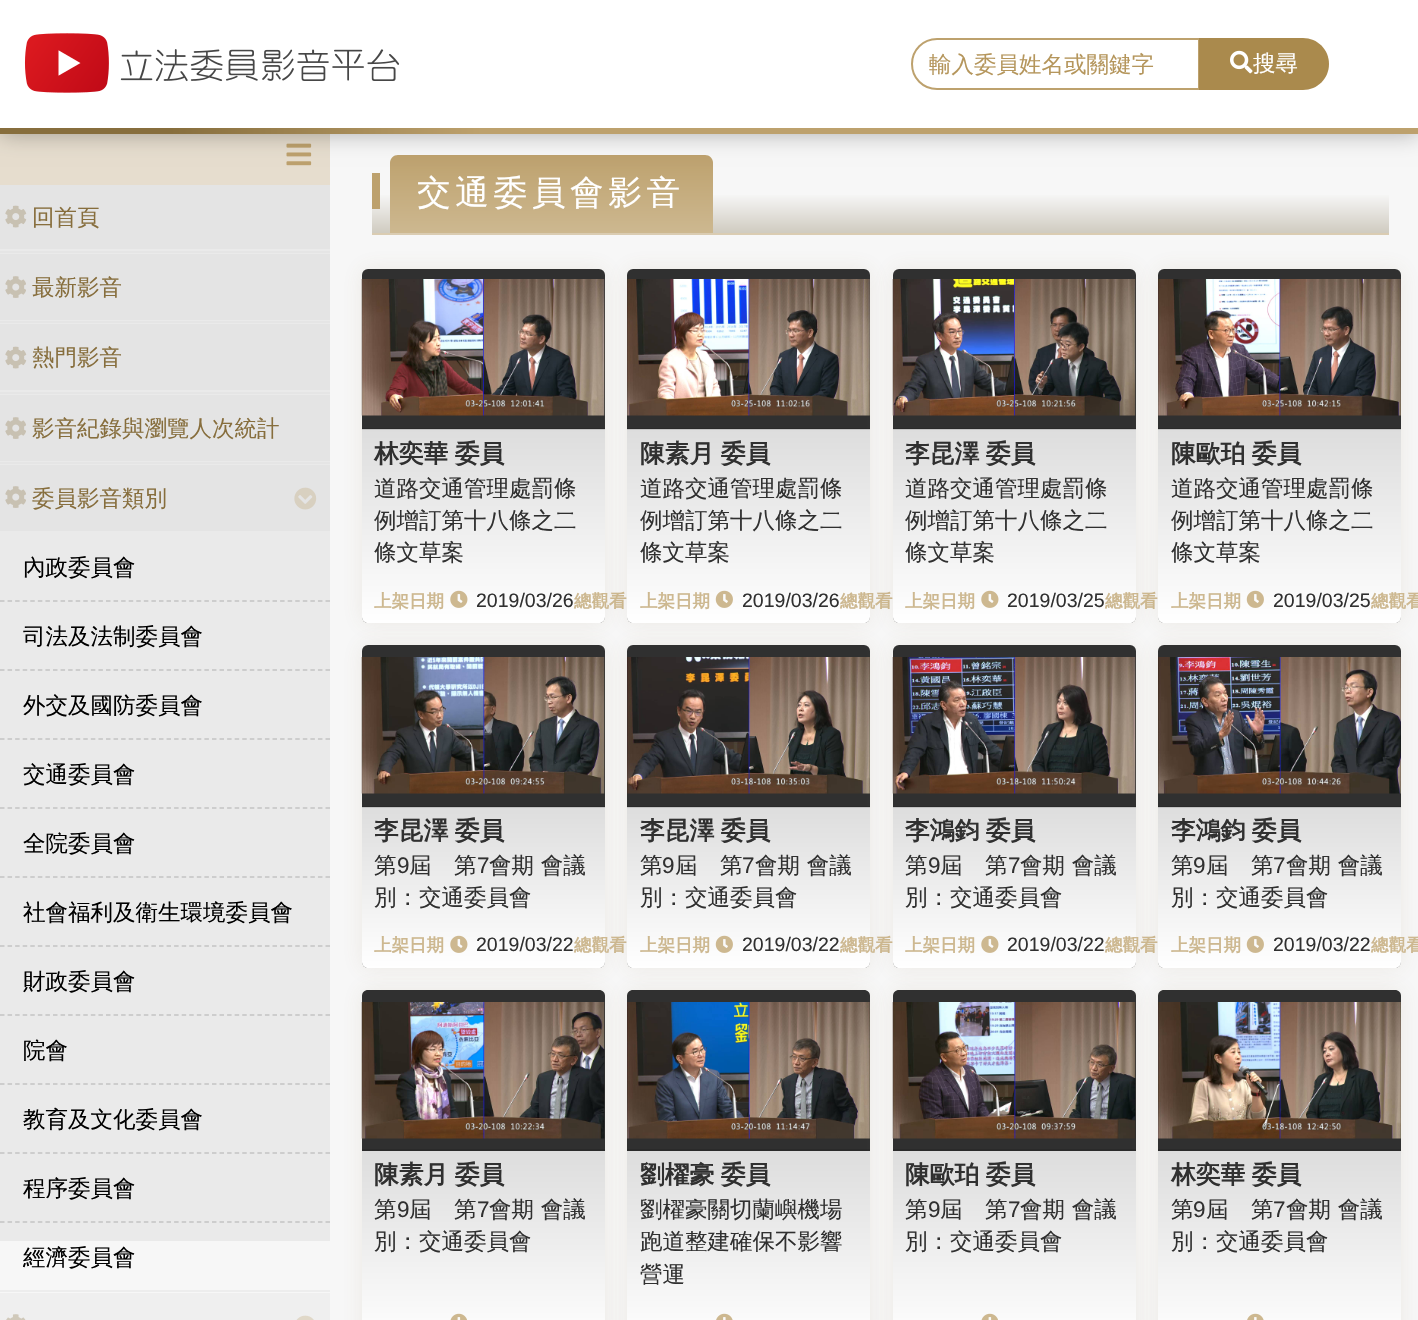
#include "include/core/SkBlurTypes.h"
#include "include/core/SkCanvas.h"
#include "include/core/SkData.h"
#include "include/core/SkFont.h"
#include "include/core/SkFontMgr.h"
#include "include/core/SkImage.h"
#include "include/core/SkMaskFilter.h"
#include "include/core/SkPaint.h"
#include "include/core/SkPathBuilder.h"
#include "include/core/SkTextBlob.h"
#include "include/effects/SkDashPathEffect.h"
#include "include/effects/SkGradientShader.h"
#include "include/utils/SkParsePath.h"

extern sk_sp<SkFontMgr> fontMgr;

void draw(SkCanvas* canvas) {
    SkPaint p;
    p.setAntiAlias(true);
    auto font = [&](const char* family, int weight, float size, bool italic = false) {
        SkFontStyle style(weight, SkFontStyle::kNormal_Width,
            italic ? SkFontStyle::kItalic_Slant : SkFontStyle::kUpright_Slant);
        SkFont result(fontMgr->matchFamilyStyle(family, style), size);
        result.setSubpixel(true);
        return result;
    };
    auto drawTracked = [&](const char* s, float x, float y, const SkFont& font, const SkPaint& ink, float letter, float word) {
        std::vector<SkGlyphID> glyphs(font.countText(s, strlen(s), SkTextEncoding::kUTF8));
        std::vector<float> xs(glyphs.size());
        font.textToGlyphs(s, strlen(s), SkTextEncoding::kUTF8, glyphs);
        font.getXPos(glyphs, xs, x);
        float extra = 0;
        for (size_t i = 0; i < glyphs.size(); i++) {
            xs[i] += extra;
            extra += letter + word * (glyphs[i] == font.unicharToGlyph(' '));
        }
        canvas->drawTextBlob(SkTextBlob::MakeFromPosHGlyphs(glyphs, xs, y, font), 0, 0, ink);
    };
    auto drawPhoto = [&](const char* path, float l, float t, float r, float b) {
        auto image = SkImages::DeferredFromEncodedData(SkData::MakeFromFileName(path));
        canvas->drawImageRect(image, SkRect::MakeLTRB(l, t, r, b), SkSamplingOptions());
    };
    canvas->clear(0xFFF7F7F7);
    p.setColor(0xFFE6DDCE);
    canvas->drawRect(SkRect::MakeLTRB(0, 134, 330, 185), p);
    drawPhoto("media/3.png", 286, 143, 312, 166);
    {
        const SkColor colors[] = {0xFFF7F7F7, 0xFFD0CBC0};
        const float stops[] = {0.5f, 1};
        const SkPoint ends[] = {{881, 154}, {881, 233}};
        p.setShader(SkGradientShader::MakeLinear(ends, colors, stops, 2, SkTileMode::kClamp));
        p.setAlpha(255);
    }
    canvas->drawRect(SkRect::MakeLTRB(372, 195, 1389, 233), p);
    {
        const SkColor colors[] = {0xFFBDA16D, 0xFFCDB890};
        const float stops[] = {0, 1};
        const SkPoint ends[] = {{551, 154}, {551, 233}};
        p.setShader(SkGradientShader::MakeLinear(ends, colors, stops, 2, SkTileMode::kClamp));
        p.setAlpha(255);
    }
    canvas->drawPath(SkPathBuilder().moveTo(398, 155).lineTo(705, 155).cubicTo(709.5f, 155, 713, 158.5f, 713, 163).lineTo(713, 233).lineTo(390, 233).lineTo(390, 163).cubicTo(390, 158.5f, 393.5f, 155, 398, 155).close().detach(), p);
    p.setShader(nullptr);
    p.setColor(0x4D000000);
    p.setMaskFilter(SkMaskFilter::MakeBlur(kNormal_SkBlurStyle, 11));
    canvas->drawRect(SkRect::MakeLTRB(0, 0, 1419, 134), p);
    p.setMaskFilter(nullptr);
    {
        const SkColor colors[] = {0xFF876E3D, 0xFFBDA16D};
        const float stops[] = {0.12f, 0.34f};
        const SkPoint ends[] = {{0, 67}, {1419, 67}};
        p.setShader(SkGradientShader::MakeLinear(ends, colors, stops, 2, SkTileMode::kClamp));
        p.setAlpha(255);
    }
    canvas->drawRect(SkRect::MakeLTRB(0, 128, 1418, 134), p);
    p.setShader(nullptr);
    p.setColor(0xFFFFFFFF);
    canvas->drawRect(SkRect::MakeLTRB(0, 0, 1418, 128), p);
    drawPhoto("media/1.png", 24, 33, 399, 93);
    p.setStyle(SkPaint::kStroke_Style);
    p.setStrokeWidth(2);
    p.setColor(0xFFBDA16D);
    canvas->drawPath(SkPathBuilder().moveTo(937, 39).lineTo(1199, 39).lineTo(1199, 89).lineTo(937, 89).cubicTo(923, 89, 912, 78, 912, 64).cubicTo(912, 50, 923, 39, 937, 39).close().detach(), p);
    auto font1 = font("WenQuanYi Zen Hei", 500, 22.5f);
    p.setStyle(SkPaint::kFill_Style);
    p.setColor(0xFFB5965C);
    canvas->drawString("輸入委員姓名或關鍵字", 929, 72, font1, p);
    p.setColor(0xFFAA8A4D);
    canvas->drawPath(SkPathBuilder().moveTo(1199, 38).lineTo(1303, 38).cubicTo(1317.5f, 38, 1329, 49.5f, 1329, 64).cubicTo(1329, 78.5f, 1317.5f, 90, 1303, 90).lineTo(1199, 90).close().detach(), p);
    drawPhoto("media/2.png", 1230, 50, 1253, 74);
    p.setColor(0xFFFFFFFF);
    canvas->drawString("搜尋", 1253, 71, font1, p);
    {
        const struct { float l, t, r, b; SkColor color; } items[] = {
            {0, 249, 330, 1241, 0xFFEAEAEA},
            {0, 251, 330, 253, 0xFFE5E5E5},
            {0, 185, 330, 249, 0xFFE4E4E4},
        };
        for (auto [l, t, r, b, color] : items) {
            p.setColor(color);
            canvas->drawRect(SkRect::MakeLTRB(l, t, r, b), p);
        }
    }
    drawPhoto("media/4.png", 5, 205, 27, 228);
    p.setColor(0xFF876E3D);
    canvas->drawString("回首頁", 32, 225, font1, p);
    p.setColor(0xFFE5E5E5);
    canvas->drawRect(SkRect::MakeLTRB(0, 321, 330, 323), p);
    p.setColor(0xFFE4E4E4);
    canvas->drawRect(SkRect::MakeLTRB(0, 254, 330, 320), p);
    drawPhoto("media/5.png", 5, 276, 26, 298);
    p.setColor(0xFF876E3D);
    canvas->drawString("最新影音", 32, 295, font1, p);
    p.setColor(0xFFE5E5E5);
    canvas->drawRect(SkRect::MakeLTRB(0, 392, 330, 394), p);
    p.setColor(0xFFE4E4E4);
    canvas->drawRect(SkRect::MakeLTRB(0, 324, 330, 390), p);
    drawPhoto("media/4.png", 5, 346, 27, 369);
    p.setColor(0xFF876E3D);
    canvas->drawString("熱門影音", 32, 365, font1, p);
    p.setColor(0xFFE5E5E5);
    canvas->drawRect(SkRect::MakeLTRB(0, 462, 330, 464), p);
    p.setColor(0xFFE4E4E4);
    canvas->drawRect(SkRect::MakeLTRB(0, 395, 330, 461), p);
    drawPhoto("media/5.png", 5, 417, 26, 439);
    p.setColor(0xFF876E3D);
    canvas->drawString("影音紀錄與瀏覽人次統計", 32, 436, font1, p);
    p.setColor(0xFFEDEDED);
    canvas->drawRect(SkRect::MakeLTRB(0, 1290, 330, 1292), p);
    p.setColor(0xFFE4E4E4);
    canvas->drawRect(SkRect::MakeLTRB(0, 465, 330, 531), p);
    drawPhoto("media/5.png", 5, 486, 26, 508);
    p.setColor(0xFF876E3D);
    canvas->drawString("委員影音類別", 32, 506, font1, p);
    drawPhoto("media/6.png", 294, 487, 317, 510);
    p.setStyle(SkPaint::kStroke_Style);
    p.setStrokeWidth(1.5f);
    p.setColor(0xFFC4C4C4);
    p.setPathEffect(SkDashPathEffect::Make({{4.5f, 3.07f}}, 0));
    canvas->drawPath(SkPathBuilder().moveTo(0, 601).lineTo(330, 601).detach(), p);
    p.setPathEffect(nullptr);
    p.setStyle(SkPaint::kFill_Style);
    p.setColor(0xFF000000);
    canvas->drawString("內政委員會", 23, 575, font1, p);
    p.setStyle(SkPaint::kStroke_Style);
    p.setColor(0xFFC4C4C4);
    p.setPathEffect(SkDashPathEffect::Make({{4.5f, 3.07f}}, 0));
    canvas->drawPath(SkPathBuilder().moveTo(0, 670).lineTo(330, 670).detach(), p);
    p.setPathEffect(nullptr);
    p.setStyle(SkPaint::kFill_Style);
    p.setColor(0xFF000000);
    canvas->drawString("司法及法制委員會", 23, 644, font1, p);
    p.setStyle(SkPaint::kStroke_Style);
    p.setColor(0xFFC4C4C4);
    p.setPathEffect(SkDashPathEffect::Make({{4.5f, 3.07f}}, 0));
    canvas->drawPath(SkPathBuilder().moveTo(0, 739).lineTo(330, 739).detach(), p);
    p.setPathEffect(nullptr);
    p.setStyle(SkPaint::kFill_Style);
    p.setColor(0xFF000000);
    canvas->drawString("外交及國防委員會", 23, 713, font1, p);
    p.setStyle(SkPaint::kStroke_Style);
    p.setColor(0xFFC4C4C4);
    p.setPathEffect(SkDashPathEffect::Make({{4.5f, 3.07f}}, 0));
    canvas->drawPath(SkPathBuilder().moveTo(0, 808).lineTo(330, 808).detach(), p);
    p.setPathEffect(nullptr);
    p.setStyle(SkPaint::kFill_Style);
    p.setColor(0xFF000000);
    canvas->drawString("交通委員會", 23, 782, font1, p);
    p.setStyle(SkPaint::kStroke_Style);
    p.setColor(0xFFC4C4C4);
    p.setPathEffect(SkDashPathEffect::Make({{4.5f, 3.07f}}, 0));
    canvas->drawPath(SkPathBuilder().moveTo(0, 877).lineTo(330, 877).detach(), p);
    p.setPathEffect(nullptr);
    p.setStyle(SkPaint::kFill_Style);
    p.setColor(0xFF000000);
    canvas->drawString("全院委員會", 23, 851, font1, p);
    p.setStyle(SkPaint::kStroke_Style);
    p.setColor(0xFFC4C4C4);
    p.setPathEffect(SkDashPathEffect::Make({{4.5f, 3.07f}}, 0));
    canvas->drawPath(SkPathBuilder().moveTo(0, 946).lineTo(330, 946).detach(), p);
    p.setPathEffect(nullptr);
    p.setStyle(SkPaint::kFill_Style);
    p.setColor(0xFF000000);
    canvas->drawString("社會福利及衛生環境委員會", 23, 920, font1, p);
    p.setStyle(SkPaint::kStroke_Style);
    p.setColor(0xFFC4C4C4);
    p.setPathEffect(SkDashPathEffect::Make({{4.5f, 3.07f}}, 0));
    canvas->drawPath(SkPathBuilder().moveTo(0, 1015).lineTo(330, 1015).detach(), p);
    p.setPathEffect(nullptr);
    p.setStyle(SkPaint::kFill_Style);
    p.setColor(0xFF000000);
    canvas->drawString("財政委員會", 23, 989, font1, p);
    p.setStyle(SkPaint::kStroke_Style);
    p.setColor(0xFFC4C4C4);
    p.setPathEffect(SkDashPathEffect::Make({{4.5f, 3.07f}}, 0));
    canvas->drawPath(SkPathBuilder().moveTo(0, 1084).lineTo(330, 1084).detach(), p);
    p.setPathEffect(nullptr);
    p.setStyle(SkPaint::kFill_Style);
    p.setColor(0xFF000000);
    canvas->drawString("院會", 23, 1058, font1, p);
    p.setStyle(SkPaint::kStroke_Style);
    p.setColor(0xFFC4C4C4);
    p.setPathEffect(SkDashPathEffect::Make({{4.5f, 3.07f}}, 0));
    canvas->drawPath(SkPathBuilder().moveTo(0, 1153).lineTo(330, 1153).detach(), p);
    p.setPathEffect(nullptr);
    p.setStyle(SkPaint::kFill_Style);
    p.setColor(0xFF000000);
    canvas->drawString("教育及文化委員會", 23, 1127, font1, p);
    p.setStyle(SkPaint::kStroke_Style);
    p.setColor(0xFFC4C4C4);
    p.setPathEffect(SkDashPathEffect::Make({{4.5f, 3.07f}}, 0));
    canvas->drawPath(SkPathBuilder().moveTo(0, 1222).lineTo(330, 1222).detach(), p);
    p.setPathEffect(nullptr);
    p.setStyle(SkPaint::kFill_Style);
    p.setColor(0xFF000000);
    canvas->drawString("程序委員會", 23, 1196, font1, p);
    canvas->drawString("經濟委員會", 23, 1265, font1, p);
    p.setColor(0xFFEFEFEF);
    canvas->drawRect(SkRect::MakeLTRB(0, 1293, 330, 1320), p);
    drawPhoto("media/7.png", 6, 1314, 26, 1320);
    drawPhoto("media/8.png", 296, 1315, 314, 1320);
    p.setColor(0xFFDACCB2);
    canvas->drawRect(SkRect::MakeLTRB(372, 233, 1389, 235), p);
    p.setColor(0xFFBDA16D);
    canvas->drawRect(SkRect::MakeLTRB(372, 173, 380, 209), p);
    auto font2 = font("WenQuanYi Zen Hei", 500, 33.75f);
    p.setColor(0xFFFFFFFF);
    drawTracked("交通委員會影音", 417, 204, font2, p, 4.5f, 0);
    p.setColor(0x1A876E3D);
    p.setMaskFilter(SkMaskFilter::MakeBlur(kNormal_SkBlurStyle, 10.5f));
    canvas->drawRoundRect(SkRect::MakeLTRB(362, 269, 605, 623), 6, 6, p);
    p.setMaskFilter(nullptr);
    p.setColor(0xFF303030);
    canvas->drawRoundRect(SkRect::MakeLTRB(362, 269, 605, 623), 6, 6, p);
    drawPhoto("media/9.png", 361, 279, 605, 416);
    {
        const SkColor colors[] = {0xFFDDDDDD, 0xFFFFFFFF};
        const float stops[] = {0, 1};
        const SkPoint ends[] = {{483, 429}, {483, 623}};
        p.setShader(SkGradientShader::MakeLinear(ends, colors, stops, 2, SkTileMode::kClamp));
        p.setAlpha(255);
    }
    canvas->drawPath(SkPathBuilder().moveTo(362, 429).lineTo(605, 429).lineTo(605, 617).cubicTo(605, 620.5f, 602.5f, 623, 599, 623).lineTo(368, 623).cubicTo(364.5f, 623, 362, 620.5f, 362, 617).close().detach(), p);
    p.setShader(nullptr);
    p.setColor(0x1F000000);
    canvas->drawRect(SkRect::MakeLTRB(362, 428, 605, 430), p);
    auto font3 = font("WenQuanYi Zen Hei", 700, 24.75f);
    p.setColor(0xFF303030);
    drawTracked("林奕華 委員", 374, 462, font3, p, 0, -1);
    {
        const struct { const char* s; float x, y; } items[] = {
            {"道路交通管理處罰條", 374, 496},
            {"例增訂第十八條之二", 374, 528},
            {"條文草案", 374, 560},
        };
        for (auto [s, x, y] : items) {
            canvas->drawString(s, x, y, font1, p);
        }
    }
    drawPhoto("media/10.png", 450, 590, 468, 608);
    auto font4 = font("WenQuanYi Zen Hei", 700, 17.5f);
    p.setColor(0xFFCDB890);
    canvas->drawString("上架日期", 374, 607, font4, p);
    auto font5 = font("Liberation Sans", 400, 19.5f);
    p.setColor(0xFF303030);
    canvas->drawString("2019/03/26", 476, 607, font5, p);
    p.setColor(0xFFCDB890);
    canvas->drawString("總觀看", 574, 607, font4, p);
    p.setColor(0x1A876E3D);
    p.setMaskFilter(SkMaskFilter::MakeBlur(kNormal_SkBlurStyle, 10.5f));
    canvas->drawRoundRect(SkRect::MakeLTRB(627, 269, 870, 623), 6, 6, p);
    p.setMaskFilter(nullptr);
    p.setColor(0xFF303030);
    canvas->drawRoundRect(SkRect::MakeLTRB(627, 269, 870, 623), 6, 6, p);
    p.setColor(0xFF2A2A2A);
    canvas->drawRect(SkRect::MakeLTRB(627, 428, 870, 429), p);
    drawPhoto("media/11.png", 627, 279, 870, 416);
    {
        const SkColor colors[] = {0xFFDDDDDD, 0xFFFFFFFF};
        const float stops[] = {0, 1};
        const SkPoint ends[] = {{749, 429}, {749, 623}};
        p.setShader(SkGradientShader::MakeLinear(ends, colors, stops, 2, SkTileMode::kClamp));
        p.setAlpha(255);
    }
    canvas->drawPath(SkPathBuilder().moveTo(627, 429).lineTo(870, 429).lineTo(870, 617).cubicTo(870, 620.5f, 867.5f, 623, 864, 623).lineTo(633, 623).cubicTo(629.5f, 623, 627, 620.5f, 627, 617).close().detach(), p);
    {
        const SkColor colors[] = {0xFFC2C2C2, 0xFFE0E0E0};
        const float stops[] = {0, 1};
        const SkPoint ends[] = {{749, 429}, {749, 623}};
        p.setShader(SkGradientShader::MakeLinear(ends, colors, stops, 2, SkTileMode::kClamp));
        p.setAlpha(255);
    }
    canvas->drawRect(SkRect::MakeLTRB(627, 429, 870, 430), p);
    p.setShader(nullptr);
    p.setColor(0xFF303030);
    drawTracked("陳素月 委員", 640, 462, font3, p, 0, -1);
    {
        const struct { const char* s; float x, y; } items[] = {
            {"道路交通管理處罰條", 640, 496},
            {"例增訂第十八條之二", 640, 528},
            {"條文草案", 640, 560},
        };
        for (auto [s, x, y] : items) {
            canvas->drawString(s, x, y, font1, p);
        }
    }
    drawPhoto("media/12.png", 715, 590, 733, 608);
    p.setColor(0xFFCDB890);
    canvas->drawString("上架日期", 640, 607, font4, p);
    p.setColor(0xFF303030);
    canvas->drawString("2019/03/26", 742, 607, font5, p);
    p.setColor(0xFFCDB890);
    canvas->drawString("總觀看", 840, 607, font4, p);
    p.setColor(0x1A876E3D);
    p.setMaskFilter(SkMaskFilter::MakeBlur(kNormal_SkBlurStyle, 10.5f));
    canvas->drawRoundRect(SkRect::MakeLTRB(893, 269, 1136, 623), 6, 6, p);
    p.setMaskFilter(nullptr);
    p.setColor(0xFF303030);
    canvas->drawRoundRect(SkRect::MakeLTRB(893, 269, 1136, 623), 6, 6, p);
    drawPhoto("media/13.png", 892, 279, 1136, 416);
    {
        const SkColor colors[] = {0xFFDDDDDD, 0xFFFFFFFF};
        const float stops[] = {0, 1};
        const SkPoint ends[] = {{1014, 429}, {1014, 623}};
        p.setShader(SkGradientShader::MakeLinear(ends, colors, stops, 2, SkTileMode::kClamp));
        p.setAlpha(255);
    }
    canvas->drawPath(SkPathBuilder().moveTo(893, 429).lineTo(1136, 429).lineTo(1136, 617).cubicTo(1136, 620.5f, 1133.5f, 623, 1130, 623).lineTo(899, 623).cubicTo(895.5f, 623, 893, 620.5f, 893, 617).close().detach(), p);
    p.setShader(nullptr);
    p.setColor(0x1F000000);
    canvas->drawRect(SkRect::MakeLTRB(893, 428, 1136, 430), p);
    p.setColor(0xFF303030);
    drawTracked("李昆澤 委員", 905, 462, font3, p, 0, -1);
    {
        const struct { const char* s; float x, y; } items[] = {
            {"道路交通管理處罰條", 905, 496},
            {"例增訂第十八條之二", 905, 528},
            {"條文草案", 905, 560},
        };
        for (auto [s, x, y] : items) {
            canvas->drawString(s, x, y, font1, p);
        }
    }
    drawPhoto("media/10.png", 981, 590, 999, 608);
    p.setColor(0xFFCDB890);
    canvas->drawString("上架日期", 905, 607, font4, p);
    p.setColor(0xFF303030);
    canvas->drawString("2019/03/25", 1007, 607, font5, p);
    p.setColor(0xFFCDB890);
    canvas->drawString("總觀看", 1105, 607, font4, p);
    p.setColor(0x1A876E3D);
    p.setMaskFilter(SkMaskFilter::MakeBlur(kNormal_SkBlurStyle, 10.5f));
    canvas->drawRoundRect(SkRect::MakeLTRB(1158, 269, 1401, 623), 6, 6, p);
    p.setMaskFilter(nullptr);
    p.setColor(0xFF303030);
    canvas->drawRoundRect(SkRect::MakeLTRB(1158, 269, 1401, 623), 6, 6, p);
    p.setColor(0xFF2A2A2A);
    canvas->drawRect(SkRect::MakeLTRB(1158, 428, 1401, 429), p);
    drawPhoto("media/14.png", 1158, 279, 1401, 416);
    {
        const SkColor colors[] = {0xFFDDDDDD, 0xFFFFFFFF};
        const float stops[] = {0, 1};
        const SkPoint ends[] = {{1280, 429}, {1280, 623}};
        p.setShader(SkGradientShader::MakeLinear(ends, colors, stops, 2, SkTileMode::kClamp));
        p.setAlpha(255);
    }
    canvas->drawPath(SkPathBuilder().moveTo(1158, 429).lineTo(1401, 429).lineTo(1401, 617).cubicTo(1401, 620.5f, 1398.5f, 623, 1395, 623).lineTo(1164, 623).cubicTo(1160.5f, 623, 1158, 620.5f, 1158, 617).close().detach(), p);
    {
        const SkColor colors[] = {0xFFC2C2C2, 0xFFE0E0E0};
        const float stops[] = {0, 1};
        const SkPoint ends[] = {{1280, 429}, {1280, 623}};
        p.setShader(SkGradientShader::MakeLinear(ends, colors, stops, 2, SkTileMode::kClamp));
        p.setAlpha(255);
    }
    canvas->drawRect(SkRect::MakeLTRB(1158, 429, 1401, 430), p);
    p.setShader(nullptr);
    p.setColor(0xFF303030);
    drawTracked("陳歐珀 委員", 1171, 462, font3, p, 0, -1);
    {
        const struct { const char* s; float x, y; } items[] = {
            {"道路交通管理處罰條", 1171, 496},
            {"例增訂第十八條之二", 1171, 528},
            {"條文草案", 1171, 560},
        };
        for (auto [s, x, y] : items) {
            canvas->drawString(s, x, y, font1, p);
        }
    }
    drawPhoto("media/12.png", 1246, 590, 1264, 608);
    p.setColor(0xFFCDB890);
    canvas->drawString("上架日期", 1171, 607, font4, p);
    p.setColor(0xFF303030);
    canvas->drawString("2019/03/25", 1273, 607, font5, p);
    p.setColor(0xFFCDB890);
    canvas->drawString("總觀看", 1371, 607, font4, p);
    p.setColor(0x1A876E3D);
    p.setMaskFilter(SkMaskFilter::MakeBlur(kNormal_SkBlurStyle, 10.5f));
    canvas->drawRoundRect(SkRect::MakeLTRB(362, 645, 605, 968), 6, 6, p);
    p.setMaskFilter(nullptr);
    p.setColor(0xFF303030);
    canvas->drawRoundRect(SkRect::MakeLTRB(362, 645, 605, 968), 6, 6, p);
    drawPhoto("media/15.png", 361, 657, 605, 794);
    {
        const SkColor colors[] = {0xFFDDDDDD, 0xFFFFFFFF};
        const float stops[] = {0, 1};
        const SkPoint ends[] = {{483, 807}, {483, 968}};
        p.setShader(SkGradientShader::MakeLinear(ends, colors, stops, 2, SkTileMode::kClamp));
        p.setAlpha(255);
    }
    canvas->drawPath(SkPathBuilder().moveTo(362, 807).lineTo(605, 807).lineTo(605, 962).cubicTo(605, 965.5f, 602.5f, 968, 599, 968).lineTo(368, 968).cubicTo(364.5f, 968, 362, 965.5f, 362, 962).close().detach(), p);
    p.setShader(nullptr);
    p.setColor(0x1F000000);
    canvas->drawRect(SkRect::MakeLTRB(362, 806, 605, 808), p);
    p.setColor(0xFF303030);
    drawTracked("李昆澤 委員", 374, 839, font3, p, 0, -1);
    canvas->drawString("第", 374, 873, font1, p);
    auto font6 = font("Liberation Sans", 400, 22.5f);
    canvas->drawString("9", 397, 873, font6, p);
    canvas->drawString("屆　第", 409, 873, font1, p);
    canvas->drawString("7", 477, 873, font6, p);
    canvas->drawString("會期 會議", 489, 873, font1, p);
    canvas->drawString("別：交通委員會", 374, 905, font1, p);
    drawPhoto("media/16.png", 450, 935, 468, 953);
    p.setColor(0xFFCDB890);
    canvas->drawString("上架日期", 374, 951, font4, p);
    p.setColor(0xFF303030);
    canvas->drawString("2019/03/22", 476, 951, font5, p);
    p.setColor(0xFFCDB890);
    canvas->drawString("總觀看", 574, 951, font4, p);
    p.setColor(0x1A876E3D);
    p.setMaskFilter(SkMaskFilter::MakeBlur(kNormal_SkBlurStyle, 10.5f));
    canvas->drawRoundRect(SkRect::MakeLTRB(627, 645, 870, 968), 6, 6, p);
    p.setMaskFilter(nullptr);
    p.setColor(0xFF303030);
    canvas->drawRoundRect(SkRect::MakeLTRB(627, 645, 870, 968), 6, 6, p);
    p.setColor(0xFF2A2A2A);
    canvas->drawRect(SkRect::MakeLTRB(627, 806, 870, 807), p);
    drawPhoto("media/17.png", 627, 657, 870, 794);
    {
        const SkColor colors[] = {0xFFDDDDDD, 0xFFFFFFFF};
        const float stops[] = {0, 1};
        const SkPoint ends[] = {{749, 807}, {749, 968}};
        p.setShader(SkGradientShader::MakeLinear(ends, colors, stops, 2, SkTileMode::kClamp));
        p.setAlpha(255);
    }
    canvas->drawPath(SkPathBuilder().moveTo(627, 807).lineTo(870, 807).lineTo(870, 962).cubicTo(870, 965.5f, 867.5f, 968, 864, 968).lineTo(633, 968).cubicTo(629.5f, 968, 627, 965.5f, 627, 962).close().detach(), p);
    {
        const SkColor colors[] = {0xFFC2C2C2, 0xFFE0E0E0};
        const float stops[] = {0, 1};
        const SkPoint ends[] = {{749, 807}, {749, 968}};
        p.setShader(SkGradientShader::MakeLinear(ends, colors, stops, 2, SkTileMode::kClamp));
        p.setAlpha(255);
    }
    canvas->drawRect(SkRect::MakeLTRB(627, 807, 870, 808), p);
    p.setShader(nullptr);
    p.setColor(0xFF303030);
    drawTracked("李昆澤 委員", 640, 839, font3, p, 0, -1);
    canvas->drawString("第", 640, 873, font1, p);
    canvas->drawString("9", 662, 873, font6, p);
    canvas->drawString("屆　第", 675, 873, font1, p);
    canvas->drawString("7", 742, 873, font6, p);
    canvas->drawString("會期 會議", 755, 873, font1, p);
    canvas->drawString("別：交通委員會", 640, 905, font1, p);
    drawPhoto("media/18.png", 715, 935, 733, 953);
    p.setColor(0xFFCDB890);
    canvas->drawString("上架日期", 640, 951, font4, p);
    p.setColor(0xFF303030);
    canvas->drawString("2019/03/22", 742, 951, font5, p);
    p.setColor(0xFFCDB890);
    canvas->drawString("總觀看", 840, 951, font4, p);
    p.setColor(0x1A876E3D);
    p.setMaskFilter(SkMaskFilter::MakeBlur(kNormal_SkBlurStyle, 10.5f));
    canvas->drawRoundRect(SkRect::MakeLTRB(893, 645, 1136, 968), 6, 6, p);
    p.setMaskFilter(nullptr);
    p.setColor(0xFF303030);
    canvas->drawRoundRect(SkRect::MakeLTRB(893, 645, 1136, 968), 6, 6, p);
    drawPhoto("media/19.png", 892, 657, 1136, 794);
    {
        const SkColor colors[] = {0xFFDDDDDD, 0xFFFFFFFF};
        const float stops[] = {0, 1};
        const SkPoint ends[] = {{1014, 807}, {1014, 968}};
        p.setShader(SkGradientShader::MakeLinear(ends, colors, stops, 2, SkTileMode::kClamp));
        p.setAlpha(255);
    }
    canvas->drawPath(SkPathBuilder().moveTo(893, 807).lineTo(1136, 807).lineTo(1136, 962).cubicTo(1136, 965.5f, 1133.5f, 968, 1130, 968).lineTo(899, 968).cubicTo(895.5f, 968, 893, 965.5f, 893, 962).close().detach(), p);
    p.setShader(nullptr);
    p.setColor(0x1F000000);
    canvas->drawRect(SkRect::MakeLTRB(893, 806, 1136, 808), p);
    p.setColor(0xFF303030);
    drawTracked("李鴻鈞 委員", 905, 839, font3, p, 0, -1);
    canvas->drawString("第", 905, 873, font1, p);
    canvas->drawString("9", 928, 873, font6, p);
    canvas->drawString("屆　第", 940, 873, font1, p);
    canvas->drawString("7", 1008, 873, font6, p);
    canvas->drawString("會期 會議", 1020, 873, font1, p);
    canvas->drawString("別：交通委員會", 905, 905, font1, p);
    drawPhoto("media/16.png", 981, 935, 999, 953);
    p.setColor(0xFFCDB890);
    canvas->drawString("上架日期", 905, 951, font4, p);
    p.setColor(0xFF303030);
    canvas->drawString("2019/03/22", 1007, 951, font5, p);
    p.setColor(0xFFCDB890);
    canvas->drawString("總觀看", 1105, 951, font4, p);
    p.setColor(0x1A876E3D);
    p.setMaskFilter(SkMaskFilter::MakeBlur(kNormal_SkBlurStyle, 10.5f));
    canvas->drawRoundRect(SkRect::MakeLTRB(1158, 645, 1401, 968), 6, 6, p);
    p.setMaskFilter(nullptr);
    p.setColor(0xFF303030);
    canvas->drawRoundRect(SkRect::MakeLTRB(1158, 645, 1401, 968), 6, 6, p);
    p.setColor(0xFF2A2A2A);
    canvas->drawRect(SkRect::MakeLTRB(1158, 806, 1401, 807), p);
    drawPhoto("media/20.png", 1158, 657, 1401, 794);
    {
        const SkColor colors[] = {0xFFDDDDDD, 0xFFFFFFFF};
        const float stops[] = {0, 1};
        const SkPoint ends[] = {{1280, 807}, {1280, 968}};
        p.setShader(SkGradientShader::MakeLinear(ends, colors, stops, 2, SkTileMode::kClamp));
        p.setAlpha(255);
    }
    canvas->drawPath(SkPathBuilder().moveTo(1158, 807).lineTo(1401, 807).lineTo(1401, 962).cubicTo(1401, 965.5f, 1398.5f, 968, 1395, 968).lineTo(1164, 968).cubicTo(1160.5f, 968, 1158, 965.5f, 1158, 962).close().detach(), p);
    {
        const SkColor colors[] = {0xFFC2C2C2, 0xFFE0E0E0};
        const float stops[] = {0, 1};
        const SkPoint ends[] = {{1280, 807}, {1280, 968}};
        p.setShader(SkGradientShader::MakeLinear(ends, colors, stops, 2, SkTileMode::kClamp));
        p.setAlpha(255);
    }
    canvas->drawRect(SkRect::MakeLTRB(1158, 807, 1401, 808), p);
    p.setShader(nullptr);
    p.setColor(0xFF303030);
    drawTracked("李鴻鈞 委員", 1171, 839, font3, p, 0, -1);
    canvas->drawString("第", 1171, 873, font1, p);
    canvas->drawString("9", 1193, 873, font6, p);
    canvas->drawString("屆　第", 1206, 873, font1, p);
    canvas->drawString("7", 1273, 873, font6, p);
    canvas->drawString("會期 會議", 1286, 873, font1, p);
    canvas->drawString("別：交通委員會", 1171, 905, font1, p);
    drawPhoto("media/18.png", 1246, 935, 1264, 953);
    p.setColor(0xFFCDB890);
    canvas->drawString("上架日期", 1171, 951, font4, p);
    p.setColor(0xFF303030);
    canvas->drawString("2019/03/22", 1273, 951, font5, p);
    p.setColor(0xFFCDB890);
    canvas->drawString("總觀看", 1371, 951, font4, p);
    p.setColor(0x1A876E3D);
    p.setMaskFilter(SkMaskFilter::MakeBlur(kNormal_SkBlurStyle, 10.5f));
    canvas->drawRoundRect(SkRect::MakeLTRB(362, 990, 605, 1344), 6, 6, p);
    p.setMaskFilter(nullptr);
    p.setColor(0xFF303030);
    canvas->drawPath(SkPathBuilder().moveTo(368, 990).lineTo(599, 990).cubicTo(602.5f, 990, 605, 992.5f, 605, 996).lineTo(605, 1320).lineTo(362, 1320).lineTo(362, 996).cubicTo(362, 992.5f, 364.5f, 990, 368, 990).close().detach(), p);
    drawPhoto("media/21.png", 361, 1002, 605, 1139);
    p.setColor(0xFF2A2A2A);
    canvas->drawRect(SkRect::MakeLTRB(362, 1149, 605, 1151), p);
    {
        const SkColor colors[] = {0xFFDDDDDD, 0xFFFFFFFF};
        const float stops[] = {0, 1};
        const SkPoint ends[] = {{483, 1151}, {483, 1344}};
        p.setShader(SkGradientShader::MakeLinear(ends, colors, stops, 2, SkTileMode::kClamp));
        p.setAlpha(255);
    }
    canvas->drawRect(SkRect::MakeLTRB(362, 1151, 605, 1320), p);
    p.setShader(nullptr);
    p.setColor(0xFF303030);
    drawTracked("陳素月 委員", 374, 1183, font3, p, 0, -1);
    canvas->drawString("第", 374, 1217, font1, p);
    canvas->drawString("9", 397, 1217, font6, p);
    canvas->drawString("屆　第", 409, 1217, font1, p);
    canvas->drawString("7", 477, 1217, font6, p);
    canvas->drawString("會期 會議", 489, 1217, font1, p);
    canvas->drawString("別：交通委員會", 374, 1249, font1, p);
    drawPhoto("media/22.png", 450, 1313, 467, 1320);
    p.setColor(0x1A876E3D);
    p.setMaskFilter(SkMaskFilter::MakeBlur(kNormal_SkBlurStyle, 10.5f));
    canvas->drawRoundRect(SkRect::MakeLTRB(627, 990, 870, 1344), 6, 6, p);
    p.setMaskFilter(nullptr);
    p.setColor(0xFF303030);
    canvas->drawPath(SkPathBuilder().moveTo(633, 990).lineTo(864, 990).cubicTo(867.5f, 990, 870, 992.5f, 870, 996).lineTo(870, 1320).lineTo(627, 1320).lineTo(627, 996).cubicTo(627, 992.5f, 629.5f, 990, 633, 990).close().detach(), p);
    drawPhoto("media/23.png", 627, 1002, 870, 1139);
    p.setColor(0xFF2A2A2A);
    canvas->drawRect(SkRect::MakeLTRB(627, 1149, 870, 1151), p);
    {
        const SkColor colors[] = {0xFFDDDDDD, 0xFFFFFFFF};
        const float stops[] = {0, 1};
        const SkPoint ends[] = {{749, 1151}, {749, 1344}};
        p.setShader(SkGradientShader::MakeLinear(ends, colors, stops, 2, SkTileMode::kClamp));
        p.setAlpha(255);
    }
    canvas->drawRect(SkRect::MakeLTRB(627, 1151, 870, 1320), p);
    p.setShader(nullptr);
    p.setColor(0xFF303030);
    drawTracked("劉櫂豪 委員", 640, 1183, font3, p, 0, -1);
    {
        const struct { const char* s; float x, y; } items[] = {
            {"劉櫂豪關切蘭嶼機場", 640, 1217},
            {"跑道整建確保不影響", 640, 1249},
            {"營運", 640, 1282},
        };
        for (auto [s, x, y] : items) {
            canvas->drawString(s, x, y, font1, p);
        }
    }
    drawPhoto("media/24.png", 716, 1313, 733, 1320);
    p.setColor(0x1A876E3D);
    p.setMaskFilter(SkMaskFilter::MakeBlur(kNormal_SkBlurStyle, 10.5f));
    canvas->drawRoundRect(SkRect::MakeLTRB(893, 990, 1136, 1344), 6, 6, p);
    p.setMaskFilter(nullptr);
    p.setColor(0xFF303030);
    canvas->drawPath(SkPathBuilder().moveTo(899, 990).lineTo(1130, 990).cubicTo(1133.5f, 990, 1136, 992.5f, 1136, 996).lineTo(1136, 1320).lineTo(893, 1320).lineTo(893, 996).cubicTo(893, 992.5f, 895.5f, 990, 899, 990).close().detach(), p);
    drawPhoto("media/25.png", 892, 1002, 1136, 1139);
    p.setColor(0xFF2A2A2A);
    canvas->drawRect(SkRect::MakeLTRB(893, 1149, 1136, 1151), p);
    {
        const SkColor colors[] = {0xFFDDDDDD, 0xFFFFFFFF};
        const float stops[] = {0, 1};
        const SkPoint ends[] = {{1014, 1151}, {1014, 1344}};
        p.setShader(SkGradientShader::MakeLinear(ends, colors, stops, 2, SkTileMode::kClamp));
        p.setAlpha(255);
    }
    canvas->drawRect(SkRect::MakeLTRB(893, 1151, 1136, 1320), p);
    p.setShader(nullptr);
    p.setColor(0xFF303030);
    drawTracked("陳歐珀 委員", 905, 1183, font3, p, 0, -1);
    canvas->drawString("第", 905, 1217, font1, p);
    canvas->drawString("9", 928, 1217, font6, p);
    canvas->drawString("屆　第", 940, 1217, font1, p);
    canvas->drawString("7", 1008, 1217, font6, p);
    canvas->drawString("會期 會議", 1020, 1217, font1, p);
    canvas->drawString("別：交通委員會", 905, 1249, font1, p);
    drawPhoto("media/22.png", 981, 1313, 998, 1320);
    p.setColor(0x1A876E3D);
    p.setMaskFilter(SkMaskFilter::MakeBlur(kNormal_SkBlurStyle, 10.5f));
    canvas->drawRoundRect(SkRect::MakeLTRB(1158, 990, 1401, 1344), 6, 6, p);
    p.setMaskFilter(nullptr);
    p.setColor(0xFF303030);
    canvas->drawPath(SkPathBuilder().moveTo(1164, 990).lineTo(1395, 990).cubicTo(1398.5f, 990, 1401, 992.5f, 1401, 996).lineTo(1401, 1320).lineTo(1158, 1320).lineTo(1158, 996).cubicTo(1158, 992.5f, 1160.5f, 990, 1164, 990).close().detach(), p);
    drawPhoto("media/26.png", 1158, 1002, 1401, 1139);
    p.setColor(0xFF2A2A2A);
    canvas->drawRect(SkRect::MakeLTRB(1158, 1149, 1401, 1151), p);
    {
        const SkColor colors[] = {0xFFDDDDDD, 0xFFFFFFFF};
        const float stops[] = {0, 1};
        const SkPoint ends[] = {{1280, 1151}, {1280, 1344}};
        p.setShader(SkGradientShader::MakeLinear(ends, colors, stops, 2, SkTileMode::kClamp));
        p.setAlpha(255);
    }
    canvas->drawRect(SkRect::MakeLTRB(1158, 1151, 1401, 1320), p);
    p.setShader(nullptr);
    p.setColor(0xFF303030);
    drawTracked("林奕華 委員", 1171, 1183, font3, p, 0, -1);
    canvas->drawString("第", 1171, 1217, font1, p);
    canvas->drawString("9", 1193, 1217, font6, p);
    canvas->drawString("屆　第", 1206, 1217, font1, p);
    canvas->drawString("7", 1273, 1217, font6, p);
    canvas->drawString("會期 會議", 1286, 1217, font1, p);
    canvas->drawString("別：交通委員會", 1171, 1249, font1, p);
    drawPhoto("media/24.png", 1247, 1313, 1264, 1320);
}
